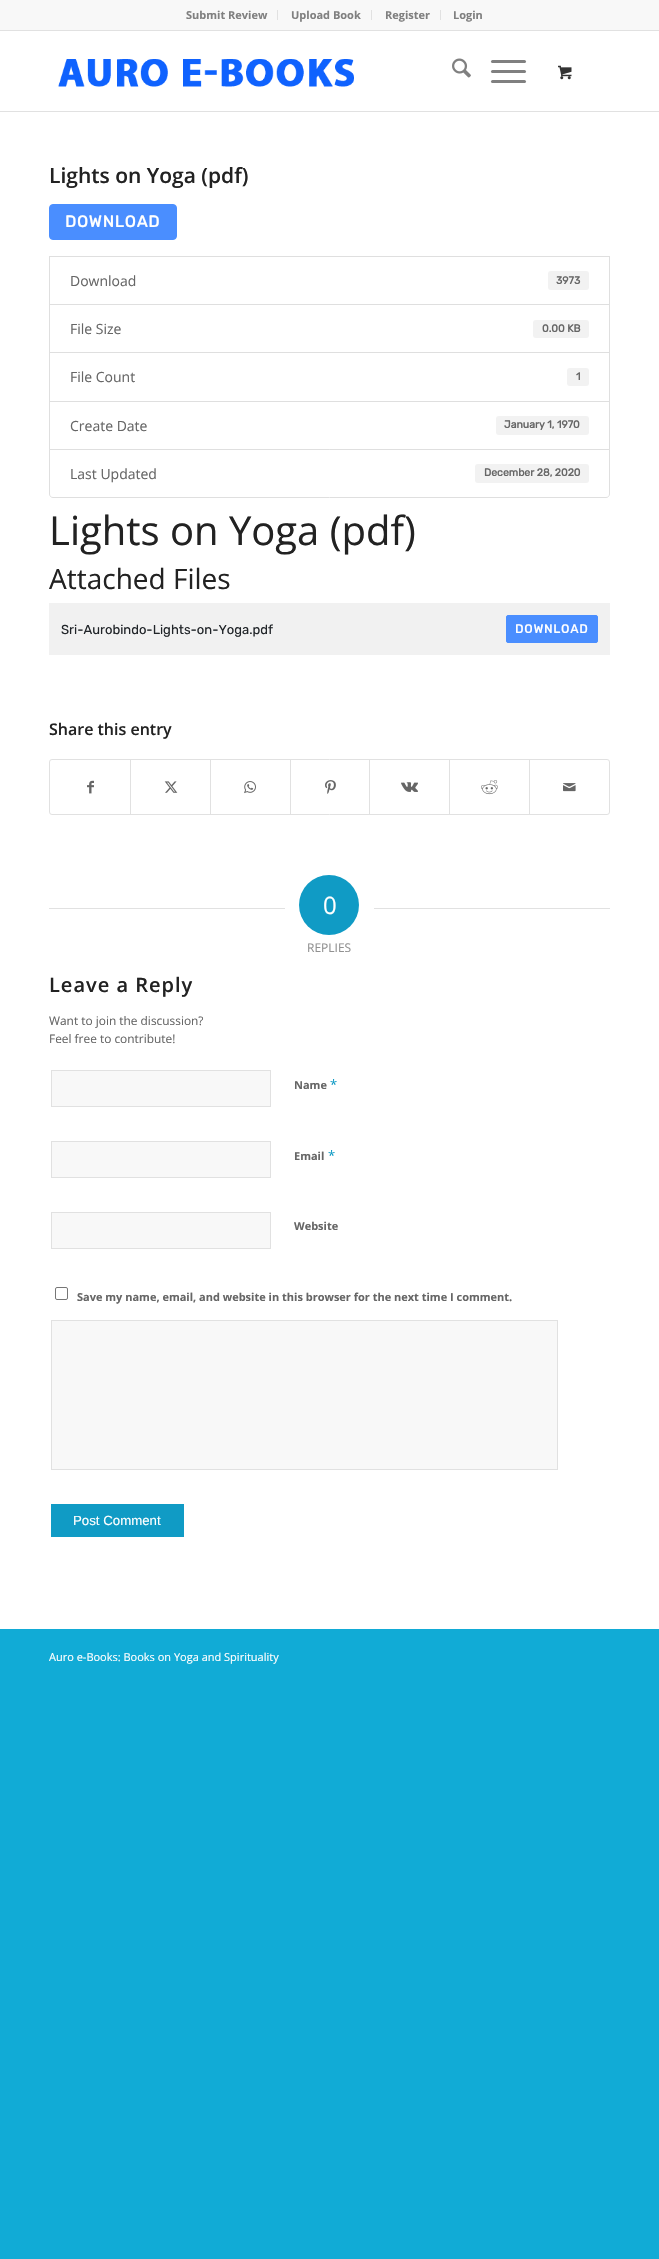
#include "include/core/SkBlurTypes.h"
#include "include/core/SkCanvas.h"
#include "include/core/SkData.h"
#include "include/core/SkFont.h"
#include "include/core/SkFontMgr.h"
#include "include/core/SkImage.h"
#include "include/core/SkMaskFilter.h"
#include "include/core/SkPaint.h"
#include "include/core/SkPathBuilder.h"
#include "include/core/SkTextBlob.h"
#include "include/effects/SkDashPathEffect.h"
#include "include/effects/SkGradientShader.h"
#include "include/utils/SkParsePath.h"

extern sk_sp<SkFontMgr> fontMgr;

void draw(SkCanvas* canvas) {
    SkPaint p;
    p.setAntiAlias(true);
    auto font = [&](const char* family, int weight, float size, bool italic = false) {
        SkFontStyle style(weight, SkFontStyle::kNormal_Width,
            italic ? SkFontStyle::kItalic_Slant : SkFontStyle::kUpright_Slant);
        SkFont result(fontMgr->matchFamilyStyle(family, style), size);
        result.setSubpixel(true);
        return result;
    };
    auto drawTracked = [&](const char* s, float x, float y, const SkFont& font, const SkPaint& ink, float letter, float word) {
        std::vector<SkGlyphID> glyphs(font.countText(s, strlen(s), SkTextEncoding::kUTF8));
        std::vector<float> xs(glyphs.size());
        font.textToGlyphs(s, strlen(s), SkTextEncoding::kUTF8, glyphs);
        font.getXPos(glyphs, xs, x);
        float extra = 0;
        for (size_t i = 0; i < glyphs.size(); i++) {
            xs[i] += extra;
            extra += letter + word * (glyphs[i] == font.unicharToGlyph(' '));
        }
        canvas->drawTextBlob(SkTextBlob::MakeFromPosHGlyphs(glyphs, xs, y, font), 0, 0, ink);
    };
    auto drawPhoto = [&](const char* path, float l, float t, float r, float b) {
        auto image = SkImages::DeferredFromEncodedData(SkData::MakeFromFileName(path));
        canvas->drawImageRect(image, SkRect::MakeLTRB(l, t, r, b), SkSamplingOptions());
    };
    canvas->clear(0xFF11ABD6);
    {
        const struct { float l, t, r, b; SkColor color; } items[] = {
            {0, 31, 659, 1629, 0xFFFFFFFF},
            {0, 0, 659, 30, 0xFFF8F8F8},
            {0, 30, 659, 31, 0xFFE1E1E1},
            {277, 10, 278, 20, 0xFFE1E1E1},
        };
        for (auto [l, t, r, b, color] : items) {
            p.setColor(color);
            canvas->drawRect(SkRect::MakeLTRB(l, t, r, b), p);
        }
    }
    auto font1 = font("Open Sans", 700, 11);
    p.setColor(0xFF808080);
    canvas->drawString("Submit Review", 186, 19, font1, p);
    p.setColor(0xFFE1E1E1);
    canvas->drawRect(SkRect::MakeLTRB(371, 10, 372, 20), p);
    p.setColor(0xFF808080);
    canvas->drawString("Upload Book", 291, 19, font1, p);
    p.setColor(0xFFE1E1E1);
    canvas->drawRect(SkRect::MakeLTRB(440, 10, 441, 20), p);
    p.setColor(0xFF808080);
    canvas->drawString("Register", 385, 19, font1, p);
    canvas->drawString("Login", 453, 19, font1, p);
    p.setColor(0xFFE1E1E1);
    canvas->drawRect(SkRect::MakeLTRB(0, 111, 659, 112), p);
    drawPhoto("media/1.png", 58, 59, 354, 87);
    drawPhoto("media/2.png", 452, 58, 471, 78);
    p.setColor(0xFF808080);
    canvas->drawRoundRect(SkRect::MakeLTRB(491, 70, 526, 73), 1.5f, 1.5f, p);
    canvas->drawRoundRect(SkRect::MakeLTRB(491, 60, 526, 63), 1.5f, 1.5f, p);
    canvas->drawRoundRect(SkRect::MakeLTRB(491, 80, 526, 83), 1.5f, 1.5f, p);
    drawPhoto("media/3.png", 558, 65, 572, 80);
    auto font2 = font("Open Sans", 600, 21);
    p.setColor(0xFF222222);
    canvas->drawString("Lights on Yoga (pdf)", 49, 183, font2, p);
    p.setColor(0xFF4A8EFF);
    canvas->drawRoundRect(SkRect::MakeLTRB(49.5f, 204.5f, 176.5f, 239.5f), 3.5f, 3.5f, p);
    p.setStyle(SkPaint::kStroke_Style);
    p.setStrokeWidth(1);
    canvas->drawRoundRect(SkRect::MakeLTRB(49.5f, 204.5f, 176.5f, 239.5f), 3.5f, 3.5f, p);
    auto font3 = font("Rubik", 700, 16);
    p.setStyle(SkPaint::kFill_Style);
    p.setColor(0xFFFFFFFF);
    drawTracked("DOWNLOAD", 65, 227, font3, p, 1, 0);
    p.setStyle(SkPaint::kStroke_Style);
    p.setColor(0xFFDFDFDF);
    canvas->drawRect(SkRect::MakeLTRB(49.5f, 256.5f, 609.5f, 304.5f), p);
    auto font4 = font("Open Sans", 400, 14);
    p.setStyle(SkPaint::kFill_Style);
    p.setColor(0xFF666666);
    canvas->drawString("Download", 70, 286, font4, p);
    p.setColor(0xFFF2F2F2);
    canvas->drawRoundRect(SkRect::MakeLTRB(548, 271, 589, 290), 3, 3, p);
    auto font5 = font("Rubik", 700, 10.5f);
    p.setColor(0xFF666666);
    canvas->drawString("3973", 556, 284, font5, p);
    p.setStyle(SkPaint::kStroke_Style);
    p.setColor(0xFFDFDFDF);
    canvas->drawRect(SkRect::MakeLTRB(49.5f, 304.5f, 609.5f, 352.5f), p);
    p.setStyle(SkPaint::kFill_Style);
    p.setColor(0xFF666666);
    canvas->drawString("File Size", 70, 334, font4, p);
    p.setColor(0xFFF2F2F2);
    canvas->drawRoundRect(SkRect::MakeLTRB(533, 320, 589, 338), 3, 3, p);
    p.setColor(0xFF666666);
    canvas->drawString("0.00 KB", 542, 332, font5, p);
    p.setStyle(SkPaint::kStroke_Style);
    p.setColor(0xFFDFDFDF);
    canvas->drawRect(SkRect::MakeLTRB(49.5f, 352.5f, 609.5f, 401.5f), p);
    p.setStyle(SkPaint::kFill_Style);
    p.setColor(0xFF666666);
    canvas->drawString("File Count", 70, 382, font4, p);
    p.setColor(0xFFF2F2F2);
    canvas->drawRoundRect(SkRect::MakeLTRB(567, 368, 589, 386), 3, 3, p);
    p.setColor(0xFF666666);
    canvas->drawString("1", 576, 380, font5, p);
    p.setStyle(SkPaint::kStroke_Style);
    p.setColor(0xFFDFDFDF);
    canvas->drawRect(SkRect::MakeLTRB(49.5f, 401.5f, 609.5f, 449.5f), p);
    p.setStyle(SkPaint::kFill_Style);
    p.setColor(0xFF666666);
    canvas->drawString("Create Date", 70, 431, font4, p);
    p.setColor(0xFFF2F2F2);
    canvas->drawRoundRect(SkRect::MakeLTRB(496, 416, 589, 435), 3, 3, p);
    p.setColor(0xFF666666);
    canvas->drawString("January 1, 1970", 504, 428, font5, p);
    p.setColor(0xFFFFFFFF);
    canvas->drawPath(SkPathBuilder().moveTo(49.5f, 449.5f).lineTo(609.5f, 449.5f).lineTo(609.5f, 494).cubicTo(609.5f, 496, 608, 497.5f, 606, 497.5f).lineTo(53, 497.5f).cubicTo(51, 497.5f, 49.5f, 496, 49.5f, 494).close().detach(), p);
    p.setStyle(SkPaint::kStroke_Style);
    p.setColor(0xFFDFDFDF);
    canvas->drawPath(SkPathBuilder().moveTo(49.5f, 449.5f).lineTo(609.5f, 449.5f).lineTo(609.5f, 494).cubicTo(609.5f, 496, 608, 497.5f, 606, 497.5f).lineTo(53, 497.5f).cubicTo(51, 497.5f, 49.5f, 496, 49.5f, 494).close().detach(), p);
    p.setStyle(SkPaint::kFill_Style);
    p.setColor(0xFF666666);
    canvas->drawString("Last Updated", 70, 479, font4, p);
    p.setColor(0xFFF2F2F2);
    canvas->drawRoundRect(SkRect::MakeLTRB(475, 464, 589, 483), 3, 3, p);
    p.setColor(0xFF666666);
    canvas->drawString("December 28, 2020", 484, 476, font5, p);
    auto font6 = font("Open Sans", 400, 40);
    p.setColor(0xFF222222);
    canvas->drawString("Lights on Yoga (pdf)", 49, 545, font6, p);
    auto font7 = font("Open Sans", 400, 28);
    canvas->drawString("Attached Files", 49, 589, font7, p);
    p.setColor(0xFFF1F1F1);
    canvas->drawRect(SkRect::MakeLTRB(49, 603, 610, 655), p);
    auto font8 = font("Rubik", 300, 13);
    p.setColor(0xFF212529);
    canvas->drawString("Sri-Aurobindo-Lights-on-Yoga.pdf", 61, 634, font8, p);
    p.setColor(0xFF4A8EFF);
    canvas->drawRoundRect(SkRect::MakeLTRB(506.5f, 615.5f, 597.5f, 642.5f), 1.5f, 1.5f, p);
    p.setStyle(SkPaint::kStroke_Style);
    canvas->drawRoundRect(SkRect::MakeLTRB(506.5f, 615.5f, 597.5f, 642.5f), 1.5f, 1.5f, p);
    auto font9 = font("Rubik", 700, 12);
    p.setStyle(SkPaint::kFill_Style);
    p.setColor(0xFFFFFFFF);
    drawTracked("DOWNLOAD", 515, 633, font9, p, 1, 0);
    auto font10 = font("Open Sans", 600, 16);
    p.setColor(0xFF222222);
    canvas->drawString("Share this entry", 49, 735, font10, p);
    p.setStyle(SkPaint::kStroke_Style);
    p.setColor(0xFFE1E1E1);
    canvas->drawRoundRect(SkRect::MakeLTRB(49.5f, 759.5f, 609.5f, 814.5f), 2.5f, 2.5f, p);
    drawPhoto("media/4.png", 87, 780, 94, 794);
    p.setStyle(SkPaint::kFill_Style);
    canvas->drawRect(SkRect::MakeLTRB(130, 760, 131, 814), p);
    drawPhoto("media/5.png", 164, 781, 178, 793);
    canvas->drawRect(SkRect::MakeLTRB(210, 760, 211, 814), p);
    drawPhoto("media/6.png", 244, 781, 256, 794);
    canvas->drawRect(SkRect::MakeLTRB(290, 760, 291, 814), p);
    drawPhoto("media/7.png", 325, 780, 336, 794);
    canvas->drawRect(SkRect::MakeLTRB(369, 760, 370, 814), p);
    drawPhoto("media/8.png", 401, 782, 418, 792);
    canvas->drawRect(SkRect::MakeLTRB(449, 760, 450, 814), p);
    drawPhoto("media/9.png", 481, 780, 498, 795);
    canvas->drawRect(SkRect::MakeLTRB(529, 760, 530, 814), p);
    drawPhoto("media/10.png", 563, 783, 576, 792);
    canvas->drawRect(SkRect::MakeLTRB(49, 908, 285, 909), p);
    p.setColor(0xFF109BC5);
    canvas->drawCircle(329, 905, 30, p);
    auto font11 = font("Open Sans", 400, 24);
    p.setColor(0xFFFFFFFF);
    canvas->drawString("0", 323, 914, font11, p);
    p.setColor(0xFFE1E1E1);
    canvas->drawRect(SkRect::MakeLTRB(374, 908, 610, 909), p);
    auto font12 = font("Open Sans", 400, 12);
    p.setColor(0xFF919191);
    canvas->drawString("REPLIES", 307, 952, font12, p);
    auto font13 = font("Open Sans", 600, 20);
    p.setColor(0xFF222222);
    drawTracked("Leave a Reply", 49, 992, font13, p, 1, 0);
    auto font14 = font("Open Sans", 400, 11.9f);
    p.setColor(0xFF666666);
    canvas->drawString("Want to join the discussion?", 49, 1025, font14, p);
    canvas->drawString("Feel free to contribute!", 49, 1043, font14, p);
    p.setColor(0xFFF8F8F8);
    canvas->drawRect(SkRect::MakeLTRB(51.5f, 1070.5f, 270.5f, 1106.5f), p);
    p.setStyle(SkPaint::kStroke_Style);
    p.setColor(0xFFE1E1E1);
    canvas->drawRect(SkRect::MakeLTRB(51.5f, 1070.5f, 270.5f, 1106.5f), p);
    p.setStyle(SkPaint::kFill_Style);
    p.setColor(0xFF666666);
    canvas->drawString("Name", 294, 1089, font1, p);
    auto font15 = font("Open Sans", 400, 13);
    p.setColor(0xFF109BC5);
    canvas->drawString("*", 330, 1089, font15, p);
    p.setColor(0xFFF8F8F8);
    canvas->drawRect(SkRect::MakeLTRB(51.5f, 1141.5f, 270.5f, 1177.5f), p);
    p.setStyle(SkPaint::kStroke_Style);
    p.setColor(0xFFE1E1E1);
    canvas->drawRect(SkRect::MakeLTRB(51.5f, 1141.5f, 270.5f, 1177.5f), p);
    p.setStyle(SkPaint::kFill_Style);
    p.setColor(0xFF666666);
    canvas->drawString("Email", 294, 1160, font1, p);
    p.setColor(0xFF109BC5);
    canvas->drawString("*", 328, 1160, font15, p);
    p.setColor(0xFFF8F8F8);
    canvas->drawRect(SkRect::MakeLTRB(51.5f, 1212.5f, 270.5f, 1248.5f), p);
    p.setStyle(SkPaint::kStroke_Style);
    p.setColor(0xFFE1E1E1);
    canvas->drawRect(SkRect::MakeLTRB(51.5f, 1212.5f, 270.5f, 1248.5f), p);
    p.setStyle(SkPaint::kFill_Style);
    p.setColor(0xFF666666);
    canvas->drawString("Website", 294, 1230, font1, p);
    p.setStyle(SkPaint::kStroke_Style);
    p.setColor(0xFF767676);
    canvas->drawRoundRect(SkRect::MakeLTRB(55.5f, 1287.5f, 67.5f, 1299.5f), 1.5f, 1.5f, p);
    p.setStyle(SkPaint::kFill_Style);
    p.setColor(0xFF666666);
    canvas->drawString("Save my name, email, and website in this browser for the next time I comment.", 77, 1301, font1, p);
    p.setColor(0xFFF8F8F8);
    canvas->drawRect(SkRect::MakeLTRB(51.5f, 1320.5f, 557.5f, 1469.5f), p);
    p.setStyle(SkPaint::kStroke_Style);
    p.setColor(0xFFE1E1E1);
    canvas->drawRect(SkRect::MakeLTRB(51.5f, 1320.5f, 557.5f, 1469.5f), p);
    p.setStyle(SkPaint::kFill_Style);
    p.setColor(0xFF109BC5);
    canvas->drawRect(SkRect::MakeLTRB(51, 1504, 184, 1537), p);
    auto font16 = font("Liberation Sans", 400, 13.25f);
    p.setColor(0xFFFFFFFF);
    canvas->drawString("Post Comment", 73, 1525, font16, p);
    auto font17 = font("Open Sans", 400, 11);
    canvas->drawString("Auro e-Books: Books on Yoga and Spirituality", 49, 1661, font17, p);
}
